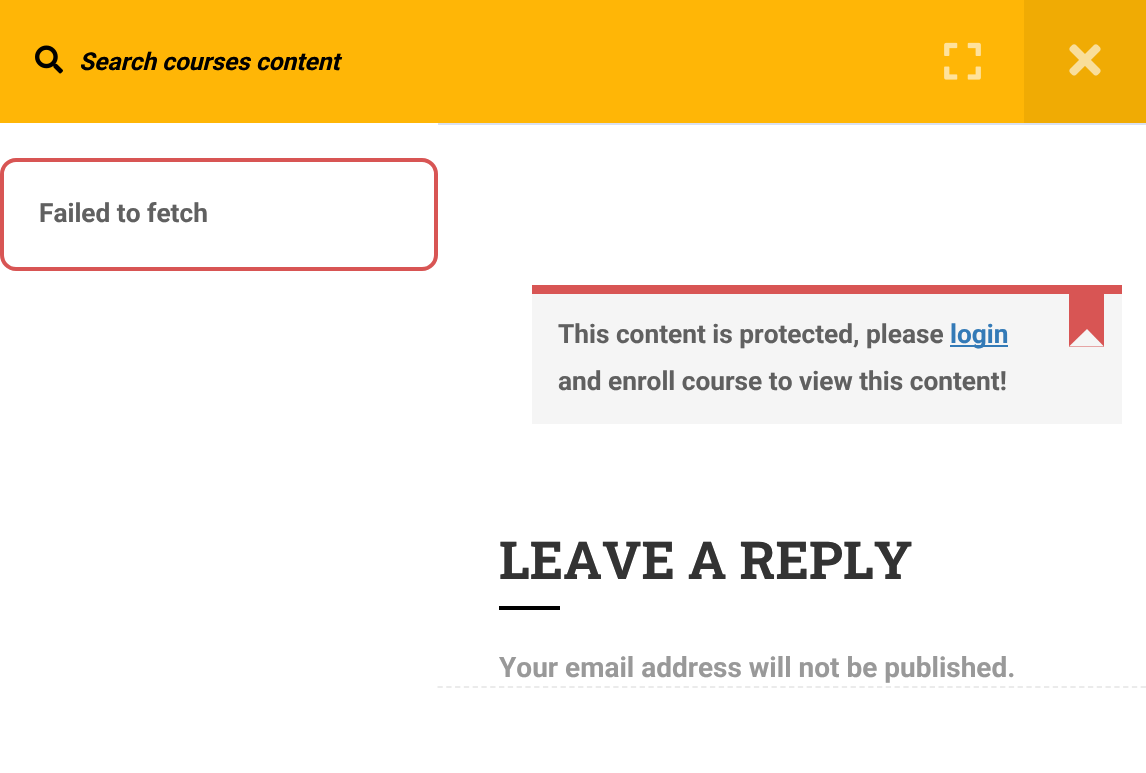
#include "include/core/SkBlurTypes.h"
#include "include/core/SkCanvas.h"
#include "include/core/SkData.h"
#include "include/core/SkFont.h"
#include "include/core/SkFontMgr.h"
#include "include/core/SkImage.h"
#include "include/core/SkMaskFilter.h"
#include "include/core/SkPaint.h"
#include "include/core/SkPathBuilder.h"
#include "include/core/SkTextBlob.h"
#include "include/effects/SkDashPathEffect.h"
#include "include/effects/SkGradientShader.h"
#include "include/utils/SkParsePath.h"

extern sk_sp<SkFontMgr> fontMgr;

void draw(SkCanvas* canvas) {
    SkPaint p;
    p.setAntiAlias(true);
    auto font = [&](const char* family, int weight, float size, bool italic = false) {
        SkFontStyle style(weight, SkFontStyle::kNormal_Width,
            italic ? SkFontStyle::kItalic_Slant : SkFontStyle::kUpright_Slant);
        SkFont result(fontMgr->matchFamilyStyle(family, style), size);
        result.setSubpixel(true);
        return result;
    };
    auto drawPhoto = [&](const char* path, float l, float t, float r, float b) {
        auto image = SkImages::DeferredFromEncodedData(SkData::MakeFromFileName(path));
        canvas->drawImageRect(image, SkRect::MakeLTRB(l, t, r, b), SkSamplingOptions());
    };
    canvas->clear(0xFFFFFFFF);
    p.setColor(0xFFFFB606);
    canvas->drawRect(SkRect::MakeLTRB(0, 0, 1024, 123), p);
    drawPhoto("media/1.png", 35, 45, 63, 74);
    auto font1 = font("Roboto", 700, 24.5f, true);
    p.setColor(0xFF000000);
    canvas->drawString("Search courses content", 79, 70, font1, p);
    p.setStyle(SkPaint::kStroke_Style);
    p.setStrokeWidth(4);
    p.setColor(0xFFD85554);
    canvas->drawRoundRect(SkRect::MakeLTRB(2, 160, 436, 269), 14, 14, p);
    auto font2 = font("Roboto", 700, 26.25f);
    p.setStyle(SkPaint::kFill_Style);
    p.setColor(0xFF606060);
    canvas->drawString("Failed to fetch", 39, 222, font2, p);
    p.setColor(0xFFD9E0F1);
    canvas->drawRect(SkRect::MakeLTRB(438, 123, 1146, 125), p);
    drawPhoto("media/2.png", 944, 42, 981, 80);
    p.setColor(0xFFF0AB04);
    canvas->drawRect(SkRect::MakeLTRB(1024, 0, 1146, 123), p);
    drawPhoto("media/3.png", 1069, 44, 1101, 76);
    p.setColor(0xFFF5F5F5);
    canvas->drawRect(SkRect::MakeLTRB(532, 294, 1122, 424), p);
    p.setColor(0xFFD85554);
    canvas->drawRect(SkRect::MakeLTRB(532, 285, 1122, 294), p);
    p.setColor(0xFF606060);
    canvas->drawString("This content is protected, please", 558, 343, font2, p);
    p.setColor(0xFF337AB7);
    canvas->drawRect(SkRect::MakeLTRB(950, 345, 1008, 347), p);
    canvas->drawString("login", 950, 343, font2, p);
    p.setColor(0xFFD85554);
    canvas->drawRect(SkRect::MakeLTRB(1069, 294, 1104, 347), p);
    p.setColor(0xFFF5F5F5);
    canvas->drawPath(SkPathBuilder().moveTo(1104, 346.5f).lineTo(1069, 346.5f).lineTo(1087, 329).close().detach(), p);
    p.setColor(0xFF606060);
    canvas->drawString("and enroll course to view this content!", 558, 390, font2, p);
    auto font3 = font("Roboto Slab", 700, 52.5f);
    p.setColor(0xFF333333);
    canvas->drawString("LEAVE A REPLY", 499, 579, font3, p);
    p.setColor(0xFF000000);
    canvas->drawRect(SkRect::MakeLTRB(499, 606, 560, 610), p);
    auto font4 = font("Roboto", 700, 28);
    p.setColor(0xFF999999);
    canvas->drawString("Your email address will not be published.", 499, 677, font4, p);
    p.setStyle(SkPaint::kStroke_Style);
    p.setStrokeWidth(1.8f);
    p.setColor(0xFFEBEBEB);
    p.setPathEffect(SkDashPathEffect::Make({{5.25f, 3.54f}}, 0));
    canvas->drawPath(SkPathBuilder().moveTo(437.5f, 687).lineTo(1146, 687).detach(), p);
    p.setPathEffect(nullptr);
}
